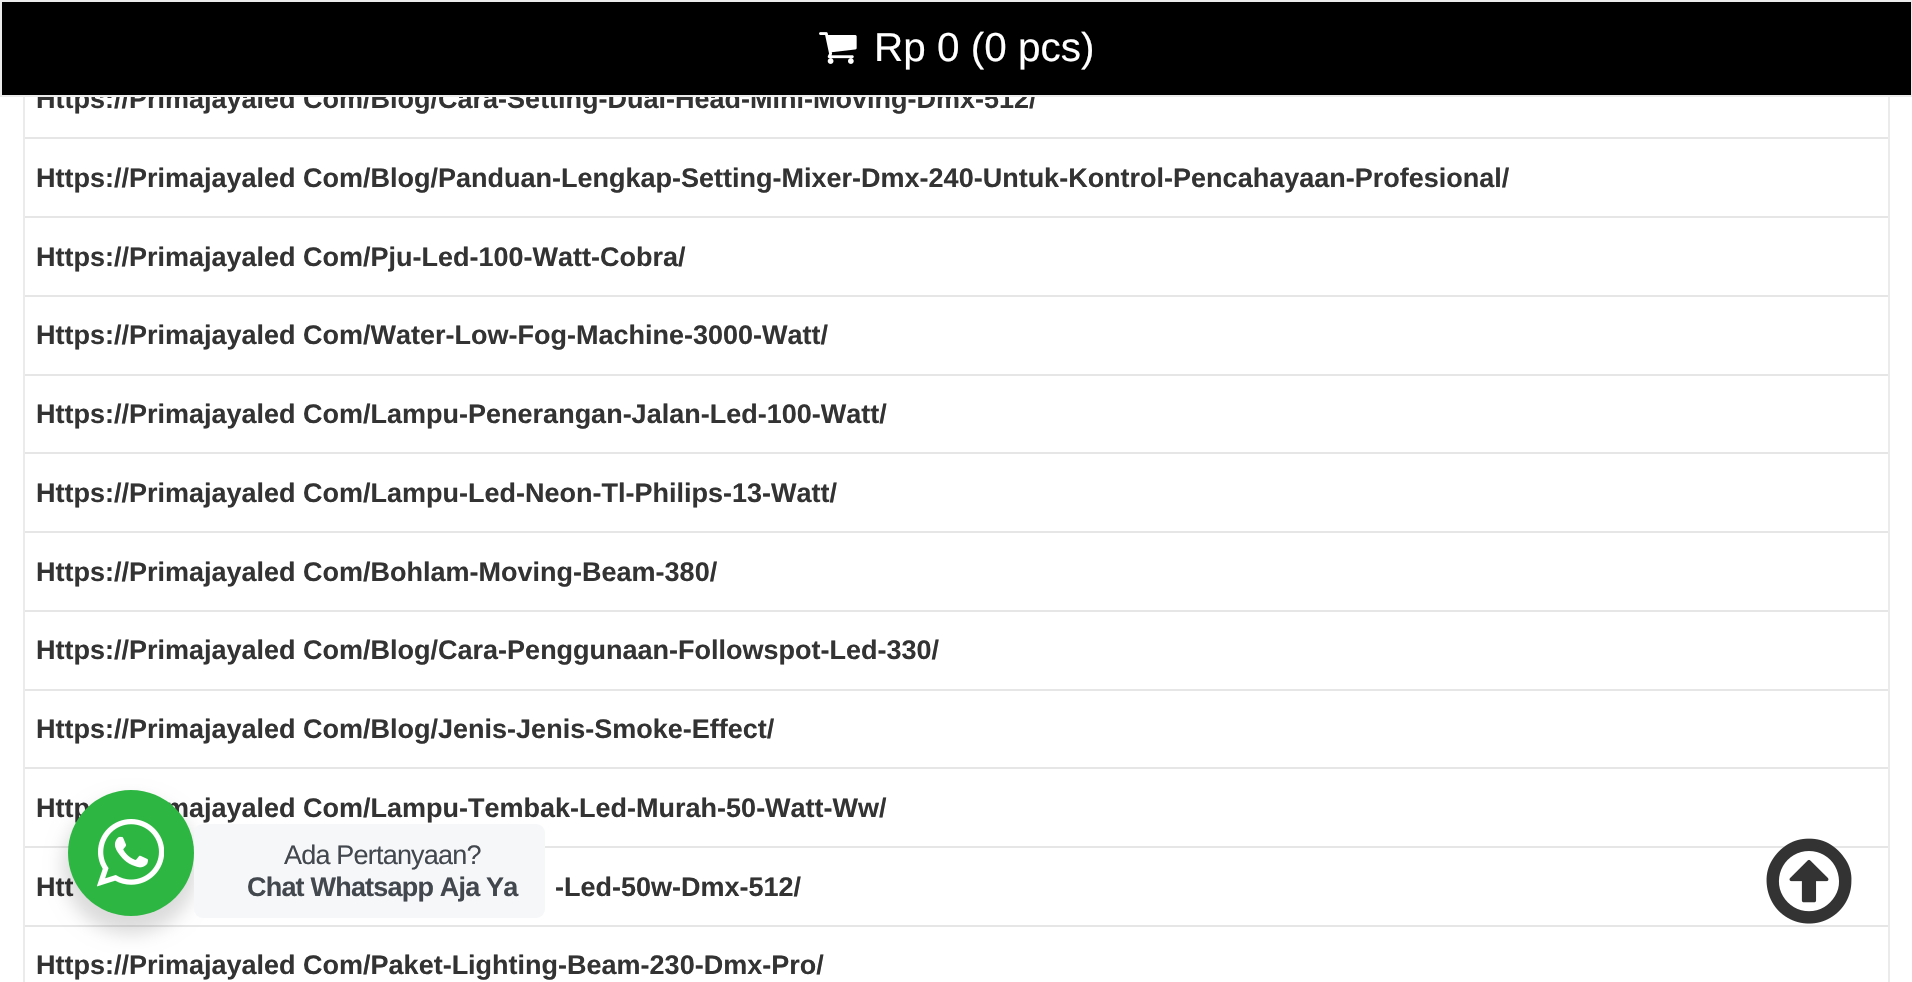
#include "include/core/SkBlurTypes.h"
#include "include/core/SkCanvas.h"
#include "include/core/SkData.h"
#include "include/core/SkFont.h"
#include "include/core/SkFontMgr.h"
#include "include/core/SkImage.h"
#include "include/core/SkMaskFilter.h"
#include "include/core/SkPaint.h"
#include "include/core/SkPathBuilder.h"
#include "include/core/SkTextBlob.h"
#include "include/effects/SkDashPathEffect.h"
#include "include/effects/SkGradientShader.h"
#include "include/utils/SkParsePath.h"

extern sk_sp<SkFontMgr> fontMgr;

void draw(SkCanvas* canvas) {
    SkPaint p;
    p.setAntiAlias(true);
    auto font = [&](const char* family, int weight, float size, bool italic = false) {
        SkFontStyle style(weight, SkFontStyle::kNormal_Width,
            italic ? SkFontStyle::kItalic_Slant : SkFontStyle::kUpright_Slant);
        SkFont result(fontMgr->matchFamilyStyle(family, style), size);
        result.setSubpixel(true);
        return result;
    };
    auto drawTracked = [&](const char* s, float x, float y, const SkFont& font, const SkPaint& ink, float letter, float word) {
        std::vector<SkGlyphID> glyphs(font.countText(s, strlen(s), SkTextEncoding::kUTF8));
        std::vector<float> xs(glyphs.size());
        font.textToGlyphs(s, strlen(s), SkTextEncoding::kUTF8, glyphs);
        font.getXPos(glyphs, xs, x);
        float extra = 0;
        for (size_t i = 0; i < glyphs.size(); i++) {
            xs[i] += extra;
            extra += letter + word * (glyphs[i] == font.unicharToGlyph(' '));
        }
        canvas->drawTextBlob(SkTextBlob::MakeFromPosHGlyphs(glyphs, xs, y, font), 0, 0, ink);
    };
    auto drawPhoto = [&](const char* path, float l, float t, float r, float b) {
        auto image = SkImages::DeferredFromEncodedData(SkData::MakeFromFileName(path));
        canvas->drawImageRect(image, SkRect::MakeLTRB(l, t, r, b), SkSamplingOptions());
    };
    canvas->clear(0xFFFFFFFF);
    p.setStyle(SkPaint::kStroke_Style);
    p.setStrokeWidth(2);
    p.setColor(0xFFEBEBEB);
    canvas->drawRect(SkRect::MakeLTRB(24, 3, 1889, 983), p);
    auto font1 = font("Liberation Sans", 700, 27);
    p.setStyle(SkPaint::kFill_Style);
    p.setColor(0xFF333333);
    canvas->drawString("Https://Primajayaled Com/Blog/Cara-Setting-Dual-Head-Mini-Moving-Dmx-512/", 36, 108, font1, p);
    p.setColor(0xFF000000);
    canvas->drawRect(SkRect::MakeLTRB(1, 1, 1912, 96), p);
    p.setStyle(SkPaint::kStroke_Style);
    p.setColor(0xFFEBEBEB);
    canvas->drawRect(SkRect::MakeLTRB(1, 1, 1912, 96), p);
    drawPhoto("media/1.png", 819, 32, 857, 64);
    auto font2 = font("Liberation Sans", 400, 40.5f);
    p.setStyle(SkPaint::kFill_Style);
    p.setColor(0xFFFFFFFF);
    canvas->drawString("Rp 0 (0 pcs)", 874, 61, font2, p);
    p.setColor(0xFFE6E6E6);
    canvas->drawRect(SkRect::MakeLTRB(25, 137, 1888, 139), p);
    canvas->drawRect(SkRect::MakeLTRB(25, 216, 1888, 218), p);
    p.setColor(0xFF333333);
    canvas->drawString("Https://Primajayaled Com/Blog/Panduan-Lengkap-Setting-Mixer-Dmx-240-Untuk-Kontrol-Pencahayaan-Profesional/", 36, 187, font1, p);
    p.setColor(0xFFE6E6E6);
    canvas->drawRect(SkRect::MakeLTRB(25, 295, 1888, 297), p);
    p.setColor(0xFF333333);
    canvas->drawString("Https://Primajayaled Com/Pju-Led-100-Watt-Cobra/", 36, 266, font1, p);
    p.setColor(0xFFE6E6E6);
    canvas->drawRect(SkRect::MakeLTRB(25, 374, 1888, 376), p);
    p.setColor(0xFF333333);
    canvas->drawString("Https://Primajayaled Com/Water-Low-Fog-Machine-3000-Watt/", 36, 344, font1, p);
    p.setColor(0xFFE6E6E6);
    canvas->drawRect(SkRect::MakeLTRB(25, 452, 1888, 454), p);
    p.setColor(0xFF333333);
    canvas->drawString("Https://Primajayaled Com/Lampu-Penerangan-Jalan-Led-100-Watt/", 36, 423, font1, p);
    p.setColor(0xFFE6E6E6);
    canvas->drawRect(SkRect::MakeLTRB(25, 531, 1888, 533), p);
    p.setColor(0xFF333333);
    canvas->drawString("Https://Primajayaled Com/Lampu-Led-Neon-Tl-Philips-13-Watt/", 36, 502, font1, p);
    p.setColor(0xFFE6E6E6);
    canvas->drawRect(SkRect::MakeLTRB(25, 610, 1888, 612), p);
    p.setColor(0xFF333333);
    canvas->drawString("Https://Primajayaled Com/Bohlam-Moving-Beam-380/", 36, 581, font1, p);
    p.setColor(0xFFE6E6E6);
    canvas->drawRect(SkRect::MakeLTRB(25, 689, 1888, 691), p);
    p.setColor(0xFF333333);
    canvas->drawString("Https://Primajayaled Com/Blog/Cara-Penggunaan-Followspot-Led-330/", 36, 659, font1, p);
    p.setColor(0xFFE6E6E6);
    canvas->drawRect(SkRect::MakeLTRB(25, 767, 1888, 769), p);
    p.setColor(0xFF333333);
    canvas->drawString("Https://Primajayaled Com/Blog/Jenis-Jenis-Smoke-Effect/", 36, 738, font1, p);
    p.setColor(0xFFE6E6E6);
    canvas->drawRect(SkRect::MakeLTRB(25, 846, 1888, 848), p);
    p.setColor(0xFF333333);
    canvas->drawString("Http", 36, 817, font1, p);
    canvas->drawString("majayaled Com/Lampu-Tembak-Led-Murah-50-Watt-Ww/", 165, 817, font1, p);
    p.setColor(0xFFE6E6E6);
    canvas->drawRect(SkRect::MakeLTRB(25, 925, 1888, 927), p);
    p.setColor(0xFF333333);
    {
        const struct { const char* s; float x, y; } items[] = {
            {"Htt", 36, 896},
            {"-Led-50w-Dmx-512/", 555, 896},
            {"Https://Primajayaled Com/Paket-Lighting-Beam-230-Dmx-Pro/", 36, 974},
        };
        for (auto [s, x, y] : items) {
            canvas->drawString(s, x, y, font1, p);
        }
    }
    p.setColor(0x24000000);
    p.setMaskFilter(SkMaskFilter::MakeBlur(kNormal_SkBlurStyle, 9));
    canvas->drawRoundRect(SkRect::MakeLTRB(63, 799, 198, 934), 67.5f, 67.5f, p);
    p.setMaskFilter(nullptr);
    p.setColor(0xFF2DB742);
    canvas->drawCircle(131, 853, 63, p);
    drawPhoto("media/2.png", 97, 819, 164, 887);
    p.setColor(0xFFF5F7F9);
    canvas->drawRoundRect(SkRect::MakeLTRB(194, 824, 545, 918), 9, 9, p);
    auto font3 = font("Liberation Sans", 400, 27);
    p.setColor(0xFF43474E);
    drawTracked("Ada Pertanyaan?", 284, 864, font3, p, -0.8f, 0);
    drawTracked("Chat Whatsapp Aja Ya", 247, 896, font1, p, -0.8f, 0);
    drawPhoto("media/3.png", 1766, 838, 1852, 924);
}
